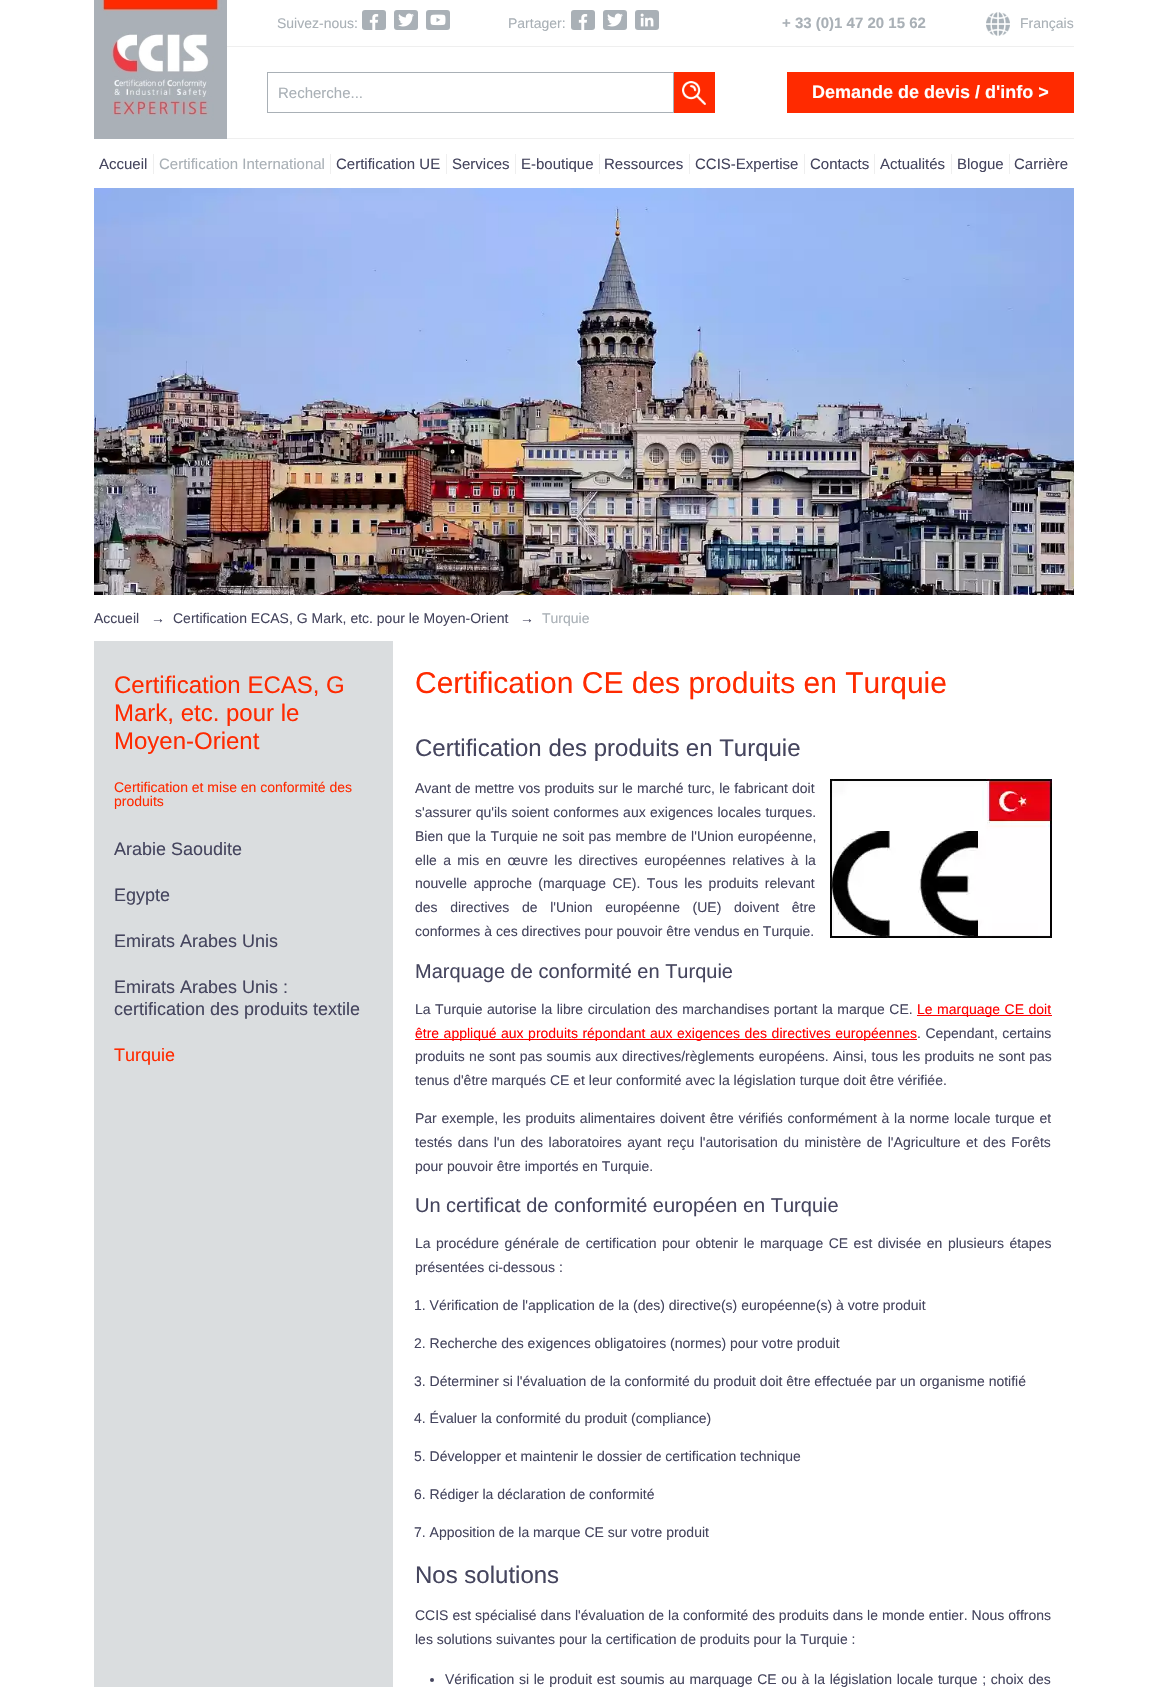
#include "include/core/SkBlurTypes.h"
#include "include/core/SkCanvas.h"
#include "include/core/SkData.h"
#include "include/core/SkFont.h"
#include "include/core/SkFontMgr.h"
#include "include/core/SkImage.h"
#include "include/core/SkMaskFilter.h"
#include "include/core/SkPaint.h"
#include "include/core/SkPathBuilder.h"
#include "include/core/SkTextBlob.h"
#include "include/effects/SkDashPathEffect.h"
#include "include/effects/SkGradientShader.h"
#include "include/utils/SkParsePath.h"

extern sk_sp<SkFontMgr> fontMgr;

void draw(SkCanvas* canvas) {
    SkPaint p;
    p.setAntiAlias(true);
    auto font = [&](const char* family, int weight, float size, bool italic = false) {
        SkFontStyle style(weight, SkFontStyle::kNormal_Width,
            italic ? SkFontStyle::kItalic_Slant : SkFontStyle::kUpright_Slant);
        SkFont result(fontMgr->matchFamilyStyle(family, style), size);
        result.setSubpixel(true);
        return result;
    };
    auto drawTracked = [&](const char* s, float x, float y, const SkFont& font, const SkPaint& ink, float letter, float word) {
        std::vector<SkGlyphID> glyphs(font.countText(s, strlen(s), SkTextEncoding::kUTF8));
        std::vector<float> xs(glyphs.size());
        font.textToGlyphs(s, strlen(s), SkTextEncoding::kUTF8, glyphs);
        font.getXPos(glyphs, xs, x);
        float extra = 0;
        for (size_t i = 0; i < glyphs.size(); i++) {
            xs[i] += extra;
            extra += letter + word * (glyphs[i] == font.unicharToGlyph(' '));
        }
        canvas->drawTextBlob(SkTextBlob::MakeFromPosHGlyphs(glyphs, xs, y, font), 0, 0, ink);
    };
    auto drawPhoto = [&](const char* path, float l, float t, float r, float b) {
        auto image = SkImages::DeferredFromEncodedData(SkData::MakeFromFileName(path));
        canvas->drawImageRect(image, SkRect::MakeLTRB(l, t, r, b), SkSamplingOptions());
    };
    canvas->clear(0xFFFFFFFF);
    drawPhoto("media/1.png", 94, 0, 227, 139);
    p.setColor(0xFFEFEFEF);
    canvas->drawRect(SkRect::MakeLTRB(227, 46, 1074, 47), p);
    auto font1 = font("Liberation Sans", 400, 14);
    p.setColor(0xFFA9B0B6);
    canvas->drawString("Suivez-nous:", 277, 28, font1, p);
    canvas->drawRoundRect(SkRect::MakeLTRB(362, 10, 386, 30), 3, 3, p);
    drawPhoto("media/2.png", 369, 14, 379, 30);
    canvas->drawRoundRect(SkRect::MakeLTRB(394, 10, 418, 30), 3, 3, p);
    drawPhoto("media/3.png", 398, 13, 414, 27);
    canvas->drawRoundRect(SkRect::MakeLTRB(426, 10, 450, 30), 3, 3, p);
    drawPhoto("media/4.png", 430, 14, 446, 26);
    canvas->drawString("Partager:", 508, 28, font1, p);
    canvas->drawRoundRect(SkRect::MakeLTRB(571, 10, 595, 30), 3, 3, p);
    drawPhoto("media/2.png", 578, 14, 588, 30);
    canvas->drawRoundRect(SkRect::MakeLTRB(603, 10, 627, 30), 3, 3, p);
    drawPhoto("media/3.png", 607, 13, 623, 27);
    canvas->drawRoundRect(SkRect::MakeLTRB(635, 10, 659, 30), 3, 3, p);
    drawPhoto("media/5.png", 640, 13, 654, 27);
    auto font2 = font("Liberation Sans", 700, 15);
    canvas->drawString("+ 33 (0)1 47 20 15 62", 782, 28, font2, p);
    drawPhoto("media/6.png", 986, 12, 1010, 36);
    canvas->drawString("Français", 1020, 28, font1, p);
    p.setColor(0xFFEFEFEF);
    canvas->drawRect(SkRect::MakeLTRB(227, 138, 1074, 139), p);
    p.setStyle(SkPaint::kStroke_Style);
    p.setStrokeWidth(1);
    p.setColor(0xFFA9B0B6);
    canvas->drawRect(SkRect::MakeLTRB(267.5f, 72.5f, 673.5f, 112.5f), p);
    auto font3 = font("Liberation Sans", 400, 15);
    p.setStyle(SkPaint::kFill_Style);
    canvas->drawString("Recherche...", 278, 98, font3, p);
    p.setColor(0xFFFF2A00);
    canvas->drawRect(SkRect::MakeLTRB(674, 72, 715, 113), p);
    drawPhoto("media/7.png", 682, 81, 706, 105);
    canvas->drawRect(SkRect::MakeLTRB(787, 72, 1074, 113), p);
    auto font4 = font("Liberation Sans", 700, 18);
    p.setColor(0xFFFFFFFF);
    canvas->drawString("Demande de devis / d'info >", 812, 98, font4, p);
    p.setColor(0xFFEFEFEF);
    canvas->drawRect(SkRect::MakeLTRB(153, 154, 154, 174), p);
    p.setColor(0xFF45455E);
    canvas->drawString("Accueil", 99, 169, font3, p);
    p.setColor(0xFFEFEFEF);
    canvas->drawRect(SkRect::MakeLTRB(330, 154, 331, 174), p);
    p.setColor(0xFFA9B0B6);
    canvas->drawString("Certification International", 159, 169, font3, p);
    p.setColor(0xFFEFEFEF);
    canvas->drawRect(SkRect::MakeLTRB(446, 154, 447, 174), p);
    p.setColor(0xFF45455E);
    canvas->drawString("Certification UE", 336, 169, font3, p);
    p.setColor(0xFFEFEFEF);
    canvas->drawRect(SkRect::MakeLTRB(515, 154, 516, 174), p);
    p.setColor(0xFF45455E);
    canvas->drawString("Services", 452, 169, font3, p);
    p.setColor(0xFFEFEFEF);
    canvas->drawRect(SkRect::MakeLTRB(599, 154, 600, 174), p);
    p.setColor(0xFF45455E);
    canvas->drawString("E-boutique", 521, 169, font3, p);
    p.setColor(0xFFEFEFEF);
    canvas->drawRect(SkRect::MakeLTRB(689, 154, 690, 174), p);
    p.setColor(0xFF45455E);
    canvas->drawString("Ressources", 604, 169, font3, p);
    p.setColor(0xFFEFEFEF);
    canvas->drawRect(SkRect::MakeLTRB(804, 154, 805, 174), p);
    p.setColor(0xFF45455E);
    canvas->drawString("CCIS-Expertise", 695, 169, font3, p);
    p.setColor(0xFFEFEFEF);
    canvas->drawRect(SkRect::MakeLTRB(874, 154, 875, 174), p);
    p.setColor(0xFF45455E);
    canvas->drawString("Contacts", 810, 169, font3, p);
    p.setColor(0xFFEFEFEF);
    canvas->drawRect(SkRect::MakeLTRB(951, 154, 952, 174), p);
    p.setColor(0xFF45455E);
    canvas->drawString("Actualités", 880, 169, font3, p);
    p.setColor(0xFFEFEFEF);
    canvas->drawRect(SkRect::MakeLTRB(1009, 154, 1010, 174), p);
    p.setColor(0xFF45455E);
    canvas->drawString("Blogue", 957, 169, font3, p);
    canvas->drawString("Carrière", 1014, 169, font3, p);
    drawPhoto("media/8.png", 94, 188, 1074, 595);
    {
        const struct { const char* s; float x, y; } items[] = {
            {"Accueil", 94, 623},
            {"→", 151, 623},
            {"Certification ECAS, G Mark, etc. pour le Moyen-Orient", 173, 623},
            {"→", 520, 623},
        };
        for (auto [s, x, y] : items) {
            canvas->drawString(s, x, y, font1, p);
        }
    }
    p.setColor(0xFFA9B0B6);
    canvas->drawString("Turquie", 542, 623, font1, p);
    p.setColor(0xFFDADDDF);
    canvas->drawRect(SkRect::MakeLTRB(94, 641, 393, 1687), p);
    auto font5 = font("Liberation Sans", 400, 24);
    p.setColor(0xFFFF2A00);
    {
        const struct { const char* s; float x, y; } items[] = {
            {"Certification ECAS, G", 114, 693},
            {"Mark, etc. pour le", 114, 721},
            {"Moyen-Orient", 114, 749},
        };
        for (auto [s, x, y] : items) {
            canvas->drawString(s, x, y, font5, p);
        }
    }
    canvas->drawString("Certification et mise en conformité des", 114, 792, font1, p);
    canvas->drawString("produits", 114, 806, font1, p);
    auto font6 = font("Liberation Sans", 400, 18);
    p.setColor(0xFF45455E);
    {
        const struct { const char* s; float x, y; } items[] = {
            {"Arabie Saoudite", 114, 855},
            {"Egypte", 114, 901},
            {"Emirats Arabes Unis", 114, 947},
            {"Emirats Arabes Unis :", 114, 993},
            {"certification des produits textile", 114, 1015},
        };
        for (auto [s, x, y] : items) {
            canvas->drawString(s, x, y, font6, p);
        }
    }
    p.setColor(0xFFFF2A00);
    canvas->drawString("Turquie", 114, 1061, font6, p);
    auto font7 = font("Liberation Sans", 400, 30);
    canvas->drawString("Certification CE des produits en Turquie", 415, 693, font7, p);
    p.setColor(0xFF45455E);
    canvas->drawString("Certification des produits en Turquie", 415, 756, font5, p);
    drawTracked("Avant de mettre vos produits sur le marché turc, le fabricant doit", 415, 793, font1, p, 0, 0.25f);
    drawTracked("s'assurer qu'ils soient conformes aux exigences locales turques.", 415, 817, font1, p, 0, 0.5f);
    drawTracked("Bien que la Turquie ne soit pas membre de l'Union européenne,", 415, 841, font1, p, 0, 0.5f);
    drawTracked("elle a mis en œuvre les directives européennes relatives à la", 415, 865, font1, p, 0, 2.5f);
    drawTracked("nouvelle approche (marquage CE). Tous les produits relevant", 415, 888, font1, p, 0, 2.5f);
    drawTracked("des directives de l'Union européenne (UE) doivent être", 415, 912, font1, p, 0, 8.75f);
    canvas->drawString("conformes à ces directives pour pouvoir être vendus en Turquie.", 415, 936, font1, p);
    drawPhoto("media/9.png", 830, 779, 1052, 938);
    auto font8 = font("Liberation Sans", 400, 20);
    canvas->drawString("Marquage de conformité en Turquie", 415, 978, font8, p);
    drawTracked("La Turquie autorise la libre circulation des marchandises portant la marque CE.", 415, 1014, font1, p, 0, 0.6f);
    p.setColor(0xFFFF0000);
    canvas->drawRect(SkRect::MakeLTRB(917, 1015, 1052, 1016), p);
    drawTracked("Le marquage CE doit", 917, 1014, font1, p, 0, 0.6f);
    canvas->drawRect(SkRect::MakeLTRB(415, 1039, 917, 1040), p);
    drawTracked("être appliqué aux produits répondant aux exigences des directives européennes", 415, 1038, font1, p, 0, 0.6f);
    p.setColor(0xFF45455E);
    drawTracked(". Cependant, certains", 917, 1038, font1, p, 0, 0.6f);
    drawTracked("produits ne sont pas soumis aux directives/règlements européens. Ainsi, tous les produits ne sont pas", 415, 1061, font1, p, 0, 0.4f);
    canvas->drawString("tenus d'être marqués CE et leur conformité avec la législation turque doit être vérifiée.", 415, 1085, font1, p);
    drawTracked("Par exemple, les produits alimentaires doivent être vérifiés conformément à la norme locale turque et", 415, 1123, font1, p, 0, 0.75f);
    drawTracked("testés dans l'un des laboratoires ayant reçu l'autorisation du ministère de l'Agriculture et des Forêts", 415, 1147, font1, p, 0, 1.6f);
    canvas->drawString("pour pouvoir être importés en Turquie.", 415, 1171, font1, p);
    canvas->drawString("Un certificat de conformité européen en Turquie", 415, 1212, font8, p);
    drawTracked("La procédure générale de certification pour obtenir le marquage CE est divisée en plusieurs étapes", 415, 1248, font1, p, 0, 1.6f);
    {
        const struct { const char* s; float x, y; } items[] = {
            {"présentées ci-dessous :", 415, 1272},
            {"1. Vérification de l'application de la (des) directive(s) européenne(s) à votre produit", 414, 1310},
            {"2. Recherche des exigences obligatoires (normes) pour votre produit", 414, 1348},
            {"3. Déterminer si l'évaluation de la conformité du produit doit être effectuée par un organisme notifié", 414, 1386},
            {"4. Évaluer la conformité du produit (compliance)", 414, 1423},
            {"5. Développer et maintenir le dossier de certification technique", 414, 1461},
            {"6. Rédiger la déclaration de conformité", 414, 1499},
            {"7. Apposition de la marque CE sur votre produit", 414, 1537},
        };
        for (auto [s, x, y] : items) {
            canvas->drawString(s, x, y, font1, p);
        }
    }
    canvas->drawString("Nos solutions", 415, 1583, font5, p);
    drawTracked("CCIS est spécialisé dans l'évaluation de la conformité des produits dans le monde entier. Nous offrons", 415, 1620, font1, p, 0, 0.1f);
    canvas->drawString("les solutions suivantes pour la certification de produits pour la Turquie :", 415, 1644, font1, p);
    canvas->drawCircle(432, 1680, 2, p);
    drawTracked("Vérification si le produit est soumis au marquage CE ou à la législation locale turque ; choix des", 445, 1684, font1, p, 0, 0.8f);
}
